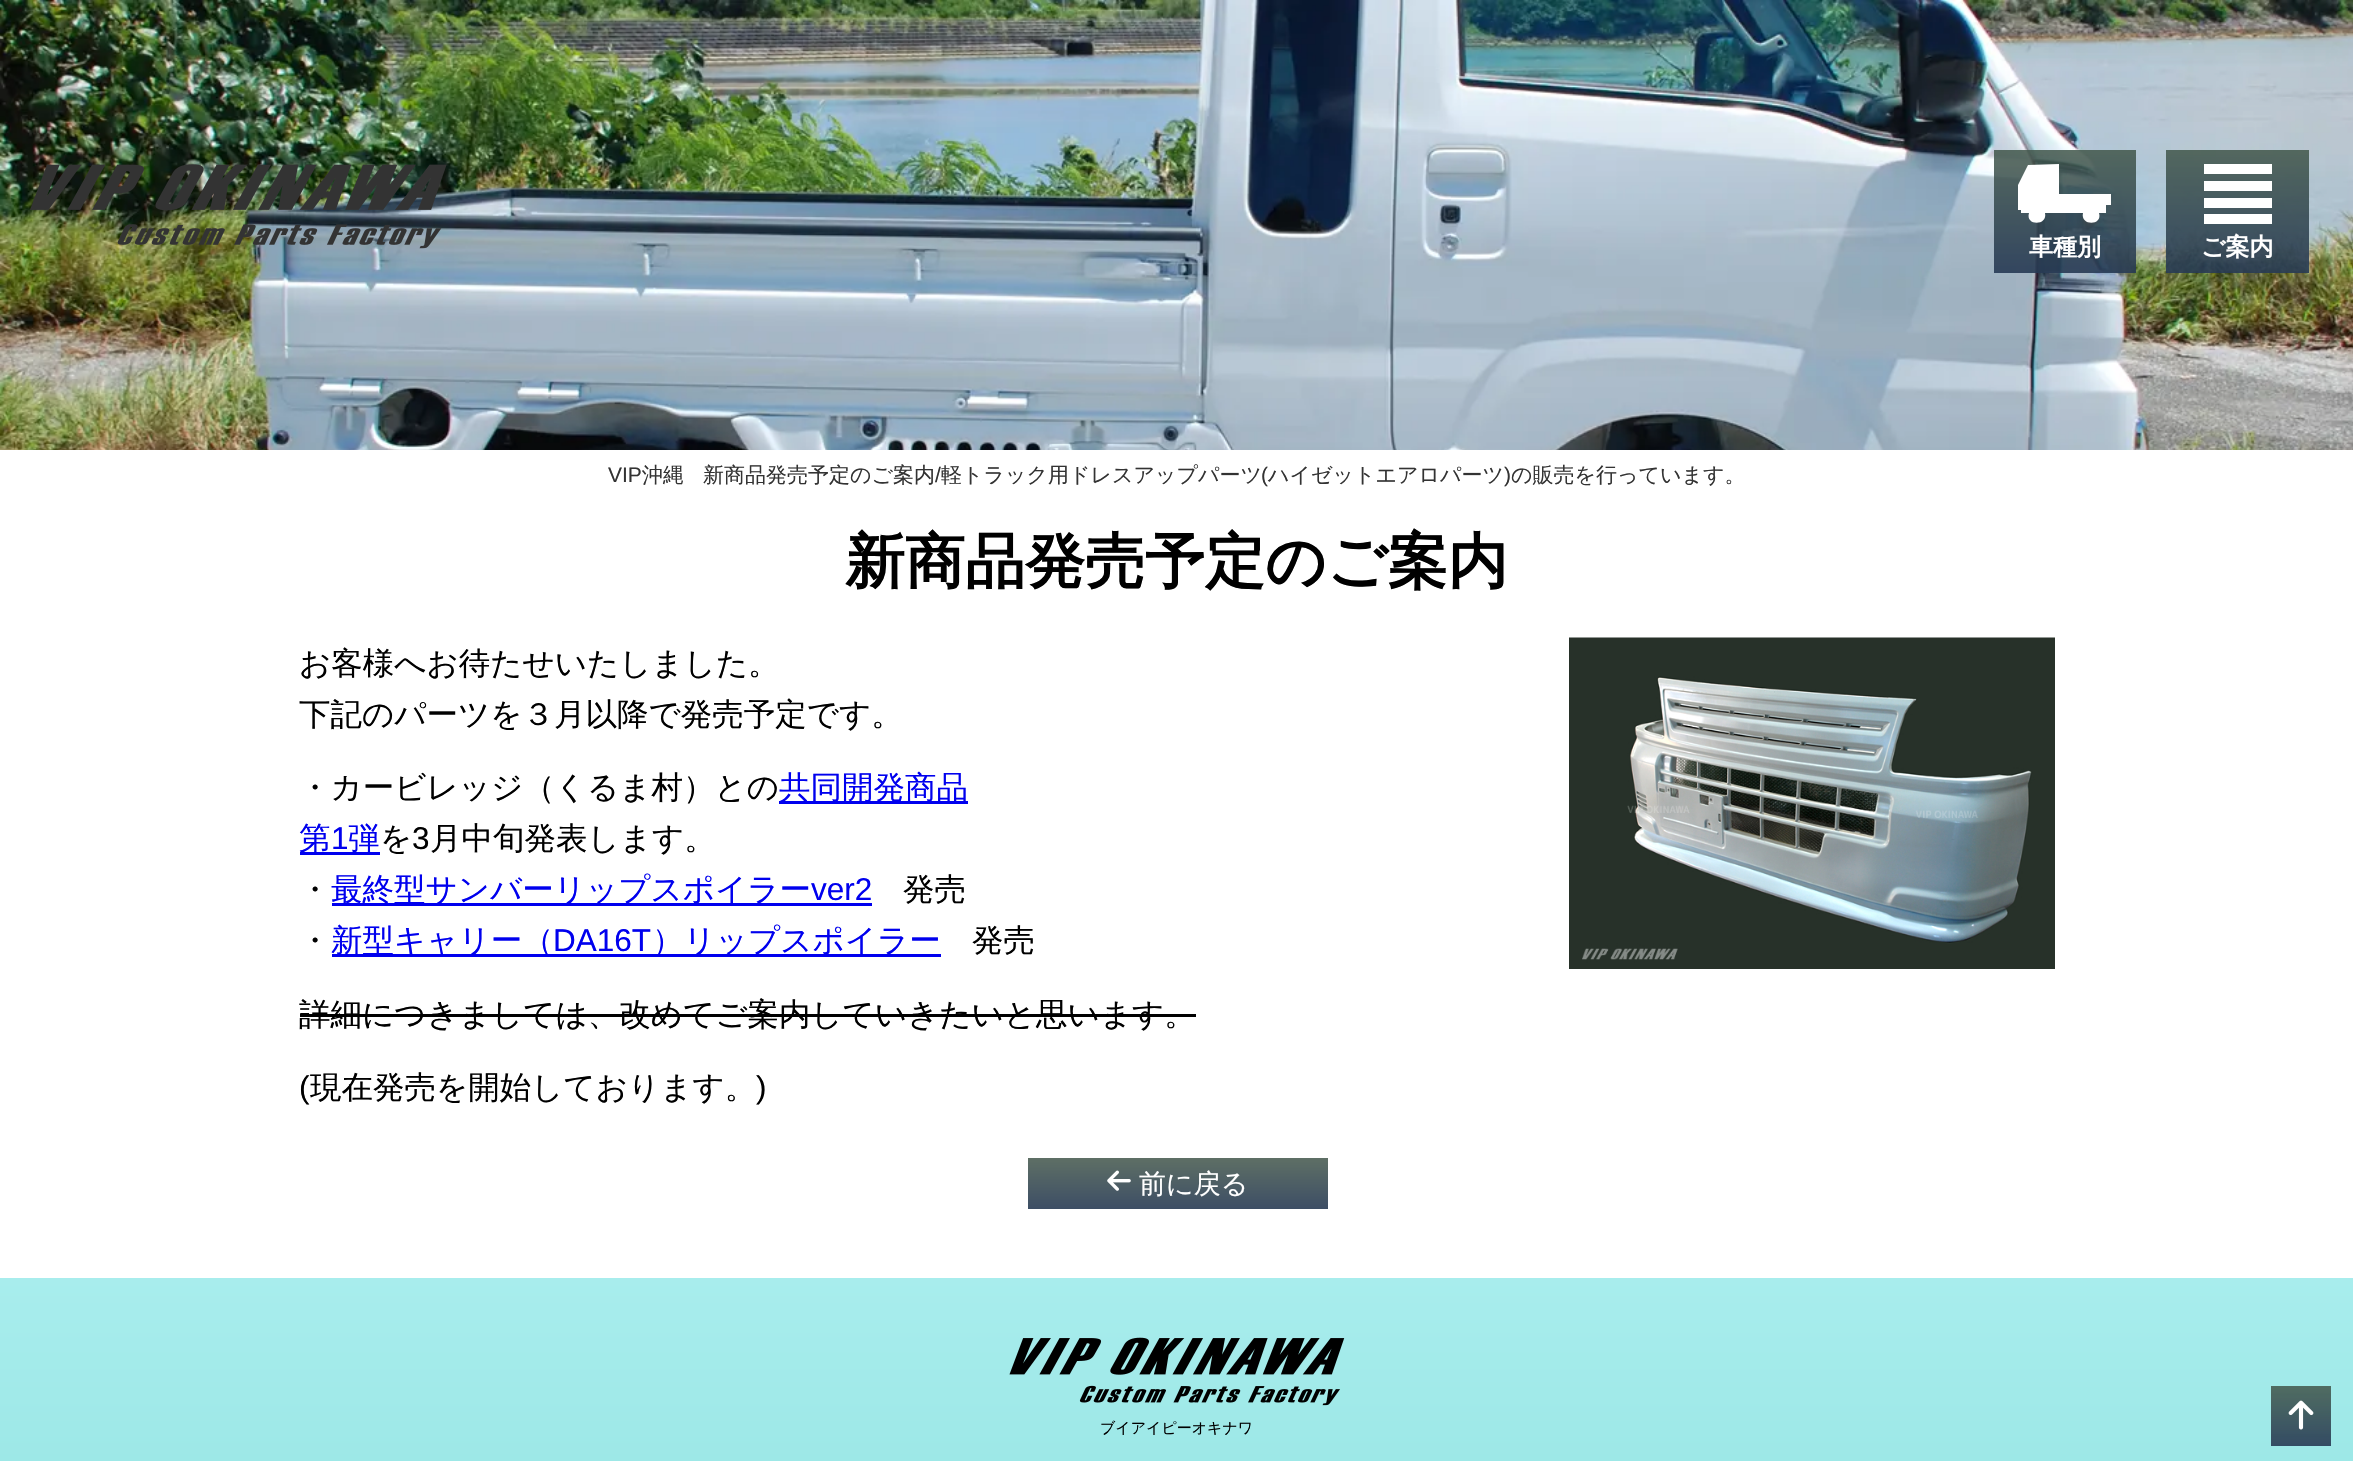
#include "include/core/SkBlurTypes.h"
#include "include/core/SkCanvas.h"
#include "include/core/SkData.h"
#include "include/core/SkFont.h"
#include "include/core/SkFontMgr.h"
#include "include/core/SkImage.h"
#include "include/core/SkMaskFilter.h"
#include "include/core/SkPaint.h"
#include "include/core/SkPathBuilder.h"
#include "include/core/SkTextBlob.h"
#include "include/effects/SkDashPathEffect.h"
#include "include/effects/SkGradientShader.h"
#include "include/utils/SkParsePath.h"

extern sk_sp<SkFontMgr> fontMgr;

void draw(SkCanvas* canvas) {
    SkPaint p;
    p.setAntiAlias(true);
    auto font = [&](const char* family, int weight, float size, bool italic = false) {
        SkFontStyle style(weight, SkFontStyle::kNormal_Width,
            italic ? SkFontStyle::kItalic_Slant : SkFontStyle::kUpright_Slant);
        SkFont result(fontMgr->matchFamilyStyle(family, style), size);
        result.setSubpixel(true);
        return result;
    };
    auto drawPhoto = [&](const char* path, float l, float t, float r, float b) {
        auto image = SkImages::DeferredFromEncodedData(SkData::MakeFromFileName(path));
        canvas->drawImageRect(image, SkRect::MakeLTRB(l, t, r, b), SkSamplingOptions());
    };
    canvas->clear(0xFFFFFFFF);
    drawPhoto("media/1.png", 0, 0, 2353, 450);
    drawPhoto("media/2.png", 30, 164, 447, 249);
    p.setColor(0xFFFFFFFF);
    canvas->drawPath(SkPathBuilder().moveTo(2111, 194).lineTo(2059, 194).lineTo(2059, 164).lineTo(2028, 165).lineTo(2018, 185).lineTo(2018, 210).lineTo(2021, 210).lineTo(2021, 213).lineTo(2029, 213).cubicTo(2025, 226, 2048, 226, 2045, 213).lineTo(2083, 213).cubicTo(2080, 226, 2103, 226, 2099, 213).lineTo(2106, 213).lineTo(2106, 205).lineTo(2111, 205).close().detach(), p);
    auto font1 = font("WenQuanYi Zen Hei", 700, 24);
    canvas->drawString("車種別", 2029, 255, font1, p);
    canvas->drawPath(SkPathBuilder().moveTo(2204, 164).lineTo(2272, 164).lineTo(2272, 174).lineTo(2204, 174).close().moveTo(2204, 181).lineTo(2272, 181).lineTo(2272, 191).lineTo(2204, 191).close().moveTo(2204, 198).lineTo(2272, 198).lineTo(2272, 208).lineTo(2204, 208).close().moveTo(2204, 214).lineTo(2272, 214).lineTo(2272, 224).lineTo(2204, 224).close().detach(), p);
    canvas->drawString("ご案内", 2201, 255, font1, p);
    auto font2 = font("Liberation Sans", 400, 21);
    p.setColor(0xFF333333);
    canvas->drawString("VIP", 608, 482, font2, p);
    auto font3 = font("WenQuanYi Zen Hei", 500, 21);
    canvas->drawString("沖縄", 642, 482, font3, p);
    canvas->drawString("新商品発売予定のご案内", 703, 482, font3, p);
    canvas->drawString("/", 935, 482, font2, p);
    canvas->drawString("軽トラック用ドレスアップパーツ", 941, 482, font3, p);
    canvas->drawString("(", 1261, 482, font2, p);
    canvas->drawString("ハイゼットエアロパーツ", 1268, 482, font3, p);
    canvas->drawString(")", 1504, 482, font2, p);
    canvas->drawString("の販売を行っています。", 1511, 482, font3, p);
    auto font4 = font("WenQuanYi Zen Hei", 700, 60);
    p.setColor(0xFF000000);
    canvas->drawString("新商品発売予定のご案内", 845, 582, font4, p);
    auto font5 = font("WenQuanYi Zen Hei", 500, 31.5f);
    canvas->drawString("お客様へお待たせいたしました。", 299, 674, font5, p);
    drawPhoto("media/3.png", 1569, 637, 2055, 969);
    canvas->drawString("下記のパーツを３月以降で発売予定です。", 299, 725, font5, p);
    canvas->drawString("・カービレッジ（くるま村）との", 299, 798, font5, p);
    p.setColor(0xFF0000EE);
    canvas->drawRect(SkRect::MakeLTRB(779, 801, 968, 804), p);
    canvas->drawString("共同開発商品", 779, 798, font5, p);
    canvas->drawRect(SkRect::MakeLTRB(300, 852, 380, 855), p);
    canvas->drawString("第", 299, 849, font5, p);
    auto font6 = font("Liberation Sans", 400, 31.5f);
    canvas->drawString("1", 331, 849, font6, p);
    canvas->drawString("弾", 348, 849, font5, p);
    p.setColor(0xFF000000);
    canvas->drawString("を", 380, 849, font5, p);
    canvas->drawString("3", 412, 849, font6, p);
    canvas->drawString("月中旬発表します。", 430, 849, font5, p);
    canvas->drawString("・", 299, 900, font5, p);
    p.setColor(0xFF0000EE);
    canvas->drawRect(SkRect::MakeLTRB(332, 903, 872, 906), p);
    canvas->drawString("最終型サンバーリップスポイラー", 331, 900, font5, p);
    canvas->drawString("ver2", 811, 900, font6, p);
    p.setColor(0xFF000000);
    canvas->drawString("発売", 903, 900, font5, p);
    canvas->drawString("・", 299, 951, font5, p);
    p.setColor(0xFF0000EE);
    canvas->drawRect(SkRect::MakeLTRB(332, 954, 941, 957), p);
    canvas->drawString("新型キャリー（", 331, 951, font5, p);
    canvas->drawString("DA16T", 553, 951, font6, p);
    canvas->drawString("）リップスポイラー", 652, 951, font5, p);
    p.setColor(0xFF000000);
    canvas->drawString("発売", 972, 951, font5, p);
    canvas->drawString("詳細につきましては、改めてご案内していきたいと思います。", 299, 1025, font5, p);
    canvas->drawRect(SkRect::MakeLTRB(300, 1014, 1196, 1017), p);
    canvas->drawString("(", 299, 1098, font6, p);
    canvas->drawString("現在発売を開始しております。", 310, 1098, font5, p);
    canvas->drawString(")", 756, 1098, font6, p);
    {
        const SkColor colors[] = {0xFF5E6F65, 0xFF3D4E65};
        const float stops[] = {0, 1};
        const SkPoint ends[] = {{1178, 1158}, {1178, 1209}};
        p.setShader(SkGradientShader::MakeLinear(ends, colors, stops, 2, SkTileMode::kClamp));
        p.setAlpha(255);
    }
    canvas->drawRect(SkRect::MakeLTRB(1028, 1158, 1328, 1209), p);
    drawPhoto("media/4.png", 1107, 1170, 1131, 1191);
    auto font7 = font("WenQuanYi Zen Hei", 500, 27);
    p.setShader(nullptr);
    p.setColor(0xFFFFFFFF);
    canvas->drawString("前に戻る", 1139, 1193, font7, p);
    {
        const SkColor colors[] = {0xFFA8EDED, 0xFF53C6BD, 0xFF5394B2};
        const float stops[] = {0, 0.51f, 1};
        const SkPoint ends[] = {{1177, 1278}, {1177, 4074}};
        p.setShader(SkGradientShader::MakeLinear(ends, colors, stops, 3, SkTileMode::kClamp));
        p.setAlpha(255);
    }
    canvas->drawRect(SkRect::MakeLTRB(0, 1278, 2353, 1461), p);
    drawPhoto("media/5.png", 1009, 1337, 1345, 1406);
    auto font8 = font("WenQuanYi Zen Hei", 500, 15);
    p.setShader(nullptr);
    p.setColor(0xFF000000);
    canvas->drawString("ブイアイピーオキナワ", 1100, 1433, font8, p);
    {
        const SkColor colors[] = {0xD941564A, 0xE6273A54};
        const float stops[] = {0, 1};
        const SkPoint ends[] = {{2301, 1386}, {2301, 1446}};
        p.setShader(SkGradientShader::MakeLinear(ends, colors, stops, 2, SkTileMode::kClamp));
        p.setAlpha(255);
    }
    canvas->drawRect(SkRect::MakeLTRB(2271, 1386, 2331, 1446), p);
    drawPhoto("media/6.png", 2288, 1400, 2314, 1430);
}
